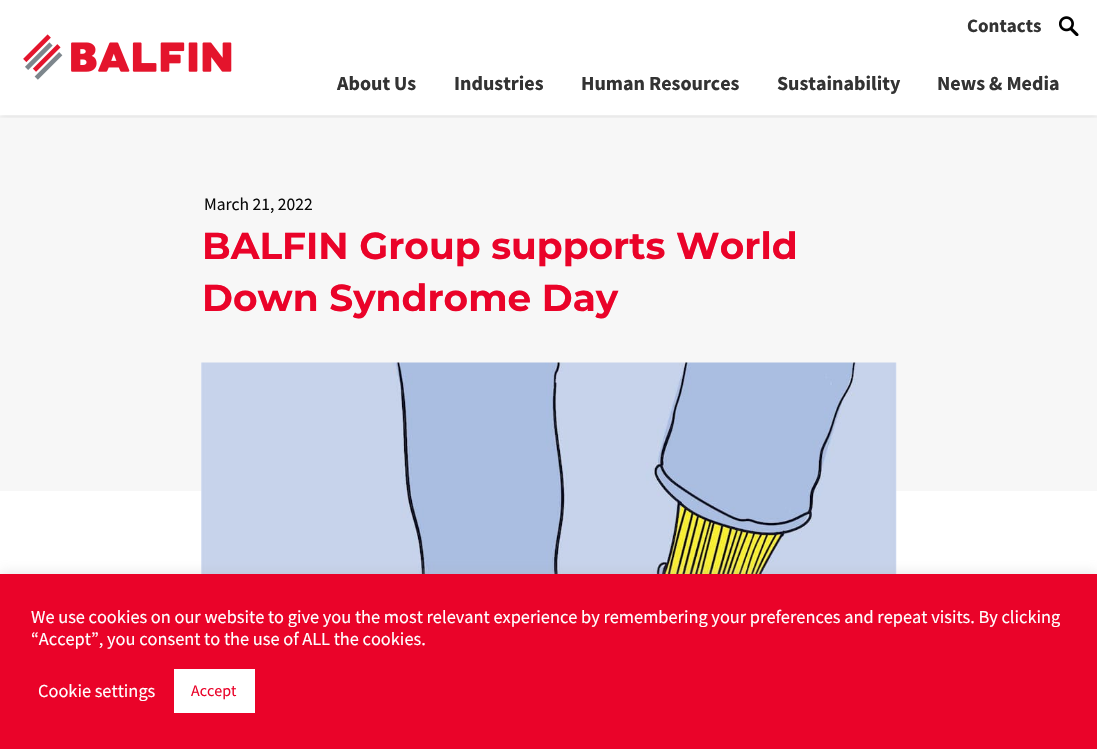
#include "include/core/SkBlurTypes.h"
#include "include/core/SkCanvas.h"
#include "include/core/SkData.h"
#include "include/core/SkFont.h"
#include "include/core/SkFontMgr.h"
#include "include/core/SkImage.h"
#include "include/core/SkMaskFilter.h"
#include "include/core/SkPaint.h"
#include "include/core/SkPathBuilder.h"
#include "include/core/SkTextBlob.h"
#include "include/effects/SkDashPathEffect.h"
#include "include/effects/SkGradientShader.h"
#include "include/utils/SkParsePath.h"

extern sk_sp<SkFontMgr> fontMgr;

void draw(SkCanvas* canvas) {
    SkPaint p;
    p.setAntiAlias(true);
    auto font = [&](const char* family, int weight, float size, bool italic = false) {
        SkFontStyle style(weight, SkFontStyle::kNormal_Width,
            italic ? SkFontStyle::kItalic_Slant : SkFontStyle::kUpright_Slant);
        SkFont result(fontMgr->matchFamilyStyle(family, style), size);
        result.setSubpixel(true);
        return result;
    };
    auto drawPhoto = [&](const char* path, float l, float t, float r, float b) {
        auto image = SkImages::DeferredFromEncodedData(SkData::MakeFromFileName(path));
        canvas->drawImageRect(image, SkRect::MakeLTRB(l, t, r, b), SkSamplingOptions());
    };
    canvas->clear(0xFFFFFFFF);
    p.setColor(0xFFF7F7F7);
    canvas->drawRect(SkRect::MakeLTRB(0, 116, 1097, 491), p);
    canvas->save();
    canvas->clipRect(SkRect::MakeLTRB(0, 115, 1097, 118));
    p.setColor(0x26000000);
    p.setMaskFilter(SkMaskFilter::MakeBlur(kNormal_SkBlurStyle, 3));
    canvas->drawRect(SkRect::MakeLTRB(0, 0, 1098, 115), p);
    p.setMaskFilter(nullptr);
    canvas->restore();
    drawPhoto("media/1.png", 23, 34, 232, 80);
    auto font1 = font("Source Sans Pro", 700, 19);
    p.setColor(0xFF333333);
    canvas->drawString("Contacts", 967, 32, font1, p);
    drawPhoto("media/2.png", 1059, 16, 1079, 36);
    auto font2 = font("Source Sans Pro", 700, 20);
    {
        const struct { const char* s; float x, y; } items[] = {
            {"About Us", 337, 90},
            {"Industries", 454, 90},
            {"Human Resources", 581, 90},
            {"Sustainability", 777, 90},
            {"News & Media", 937, 90},
        };
        for (auto [s, x, y] : items) {
            canvas->drawString(s, x, y, font2, p);
        }
    }
    auto font3 = font("Source Sans Pro", 400, 17.5f);
    p.setColor(0xFF0A0A0A);
    canvas->drawString("March 21, 2022", 204, 210, font3, p);
    auto font4 = font("Montserrat", 700, 37.5f);
    p.setColor(0xFFEA0329);
    canvas->drawString("BALFIN Group supports World", 202, 259, font4, p);
    canvas->drawString("Down Syndrome Day", 202, 311, font4, p);
    drawPhoto("media/3.png", 201, 362, 897, 574);
    p.setColor(0x4DACABAB);
    p.setMaskFilter(SkMaskFilter::MakeBlur(kNormal_SkBlurStyle, 6));
    canvas->drawRect(SkRect::MakeLTRB(0, 573, 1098, 749), p);
    p.setMaskFilter(nullptr);
    p.setColor(0xFFEA0329);
    canvas->drawRect(SkRect::MakeLTRB(0, 574, 1097, 749), p);
    auto font5 = font("Source Sans Pro", 400, 18.33f);
    p.setColor(0xFFFFFFFF);
    {
        const struct { const char* s; float x, y; } items[] = {
            {"We use cookies on our website to give you the most relevant experience by remembering your preferences and repeat visits. By clicking", 31, 623},
            {"“Accept”, you consent to the use of ALL the cookies.", 31, 645},
            {"Cookie settings", 38, 697},
        };
        for (auto [s, x, y] : items) {
            canvas->drawString(s, x, y, font5, p);
        }
    }
    canvas->drawRect(SkRect::MakeLTRB(174, 669, 255, 713), p);
    auto font6 = font("Source Sans Pro", 400, 16);
    p.setColor(0xFFEA0329);
    canvas->drawString("Accept", 191, 696, font6, p);
}
